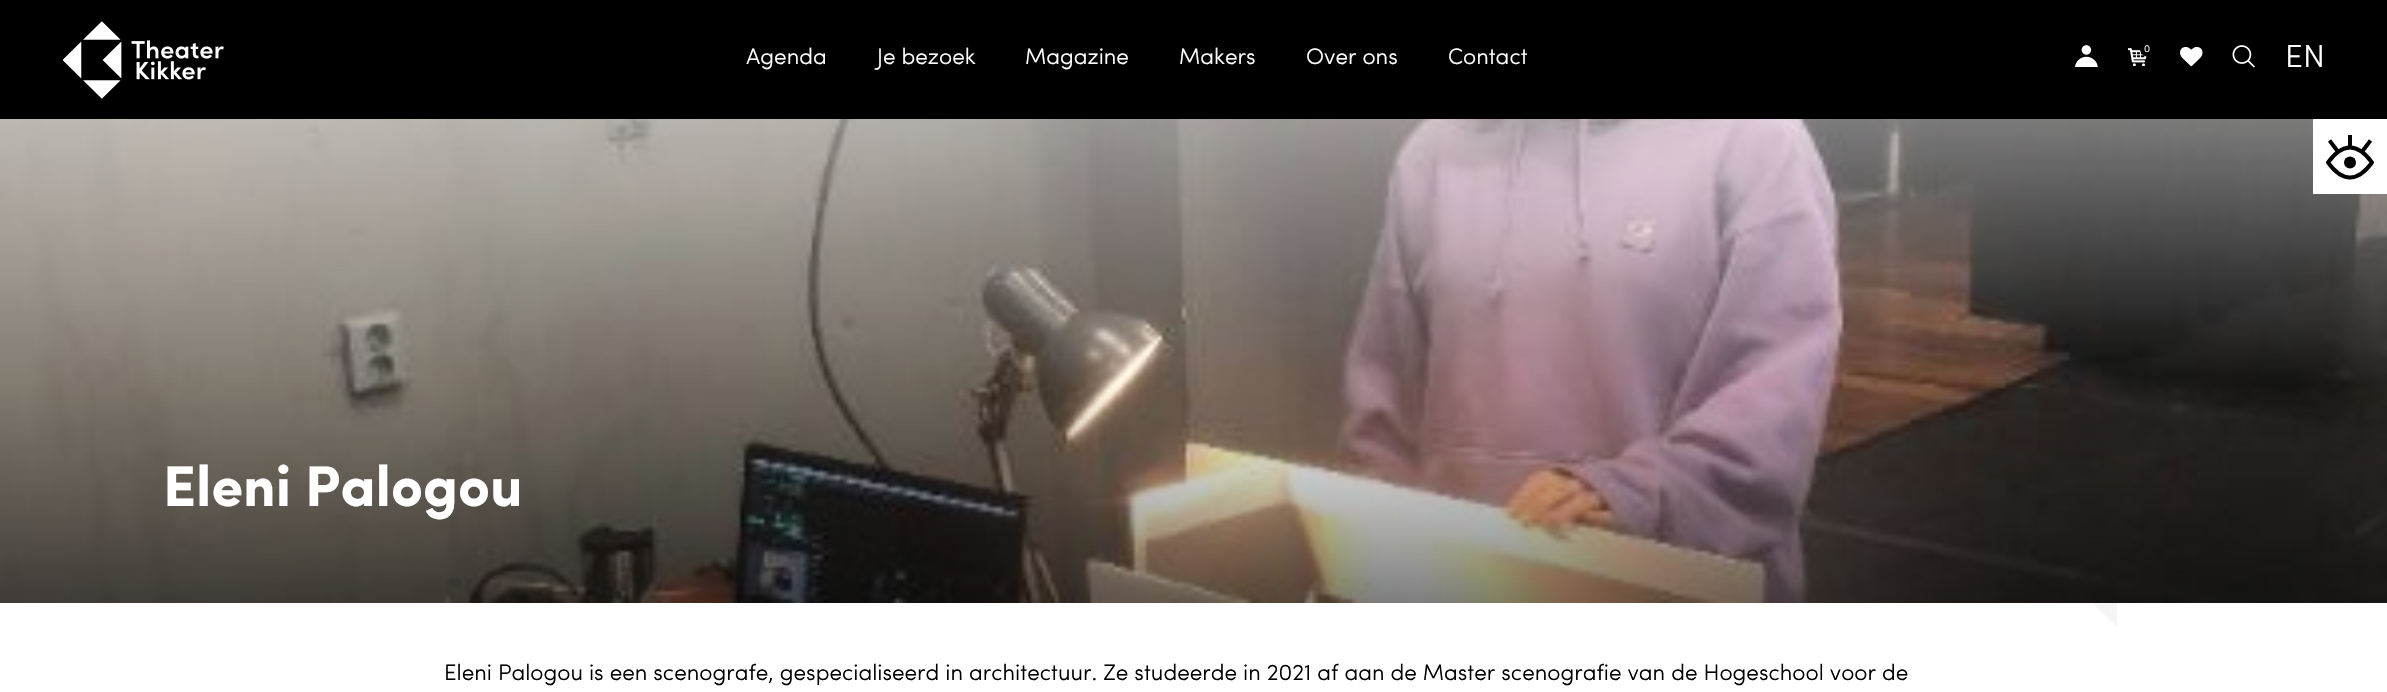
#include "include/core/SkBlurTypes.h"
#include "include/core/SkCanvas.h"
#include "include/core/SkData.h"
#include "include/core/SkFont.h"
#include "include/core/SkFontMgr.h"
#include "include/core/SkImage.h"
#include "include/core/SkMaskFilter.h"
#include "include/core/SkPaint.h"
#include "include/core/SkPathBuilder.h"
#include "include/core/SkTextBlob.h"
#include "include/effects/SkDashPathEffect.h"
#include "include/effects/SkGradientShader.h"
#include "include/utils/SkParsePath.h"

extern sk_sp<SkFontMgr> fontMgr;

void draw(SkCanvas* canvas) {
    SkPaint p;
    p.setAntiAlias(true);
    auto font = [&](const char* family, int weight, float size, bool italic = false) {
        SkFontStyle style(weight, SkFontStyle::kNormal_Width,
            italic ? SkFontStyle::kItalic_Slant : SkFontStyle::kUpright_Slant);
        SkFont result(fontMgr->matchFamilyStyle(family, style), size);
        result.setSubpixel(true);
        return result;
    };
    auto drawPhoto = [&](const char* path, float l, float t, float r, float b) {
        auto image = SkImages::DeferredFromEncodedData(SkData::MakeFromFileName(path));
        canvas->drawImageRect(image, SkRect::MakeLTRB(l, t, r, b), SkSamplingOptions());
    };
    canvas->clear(0xFFFFFFFF);
    p.setColor(0xFFF5F5F5);
    canvas->drawPath(SkPathBuilder().moveTo(1805, 321).lineTo(2117, 13).lineTo(2117, 627).close().detach(), p);
    p.setColor(0xFF000000);
    canvas->drawRect(SkRect::MakeLTRB(0, 0, 2387, 119), p);
    drawPhoto("media/1.png", 63, 21, 224, 99);
    auto font1 = font("Sofia", 300, 22.5f);
    p.setColor(0xFFFFFFFF);
    {
        const struct { const char* s; float x, y; } items[] = {
            {"Agenda", 746, 64},
            {"Je bezoek", 877, 64},
            {"Magazine", 1025, 64},
            {"Makers", 1179, 64},
            {"Over ons", 1306, 64},
            {"Contact", 1448, 64},
        };
        for (auto [s, x, y] : items) {
            canvas->drawString(s, x, y, font1, p);
        }
    }
    drawPhoto("media/2.png", 2075, 45, 2098, 67);
    drawPhoto("media/3.png", 2128, 48, 2147, 66);
    auto font2 = font("Sofia", 300, 10);
    canvas->drawString("0", 2144, 52, font2, p);
    drawPhoto("media/4.png", 2180, 47, 2203, 67);
    drawPhoto("media/5.png", 2232, 45, 2255, 68);
    auto font3 = font("Sofia", 300, 32);
    canvas->drawString("EN", 2285, 67, font3, p);
    drawPhoto("media/6.png", 0, 119, 2387, 603);
    drawPhoto("media/7.png", 753, 157, 1821, 571);
    {
        const SkColor colors[] = {0x73FFFFFF, 0x00FFFFFF, 0x00000000, 0x80000000, 0x00000000};
        const float stops[] = {0, 0.55f, 0.55f, 1, 1};
        const SkPoint ends[] = {{1194, 117}, {1194, 603}};
        p.setShader(SkGradientShader::MakeLinear(ends, colors, stops, 5, SkTileMode::kClamp));
        p.setAlpha(255);
    }
    canvas->drawRect(SkRect::MakeLTRB(0, 119, 2387, 603), p);
    p.setShader(nullptr);
    p.setColor(0xFFFFFFFF);
    canvas->drawRect(SkRect::MakeLTRB(2313, 119, 2387, 194), p);
    p.setColor(0xFF060606);
    canvas->drawRect(SkRect::MakeLTRB(2348, 135, 2352, 149), p);
    p.setStyle(SkPaint::kStroke_Style);
    p.setStrokeWidth(3.9f);
    p.setColor(0xFF000000);
    canvas->drawPath(SkPathBuilder().moveTo(2339, 153).lineTo(2329.5f, 140.5f).moveTo(2361, 153).lineTo(2370.5f, 140.5f).detach(), p);
    p.setStrokeCap(SkPaint::kRound_Cap);
    canvas->drawPath(SkPathBuilder().moveTo(2328, 162.5f).cubicTo(2342.5f, 182.5f, 2357.5f, 182.5f, 2372, 162.5f).moveTo(2328, 162.5f).cubicTo(2342.5f, 142.5f, 2357.5f, 142.5f, 2372, 162.5f).detach(), p);
    p.setStyle(SkPaint::kFill_Style);
    canvas->drawCircle(2350, 162.5f, 6, p);
    auto font4 = font("Sofia", 700, 57.5f);
    p.setColor(0xFFFFFFFF);
    canvas->drawString("Eleni Palogou", 163, 506, font4, p);
    p.setColor(0xFF000000);
    canvas->drawString("Eleni Palogou is een scenografe, gespecialiseerd in architectuur. Ze studeerde in 2021 af aan de Master scenografie van de Hogeschool voor de", 444, 680, font1, p);
}
